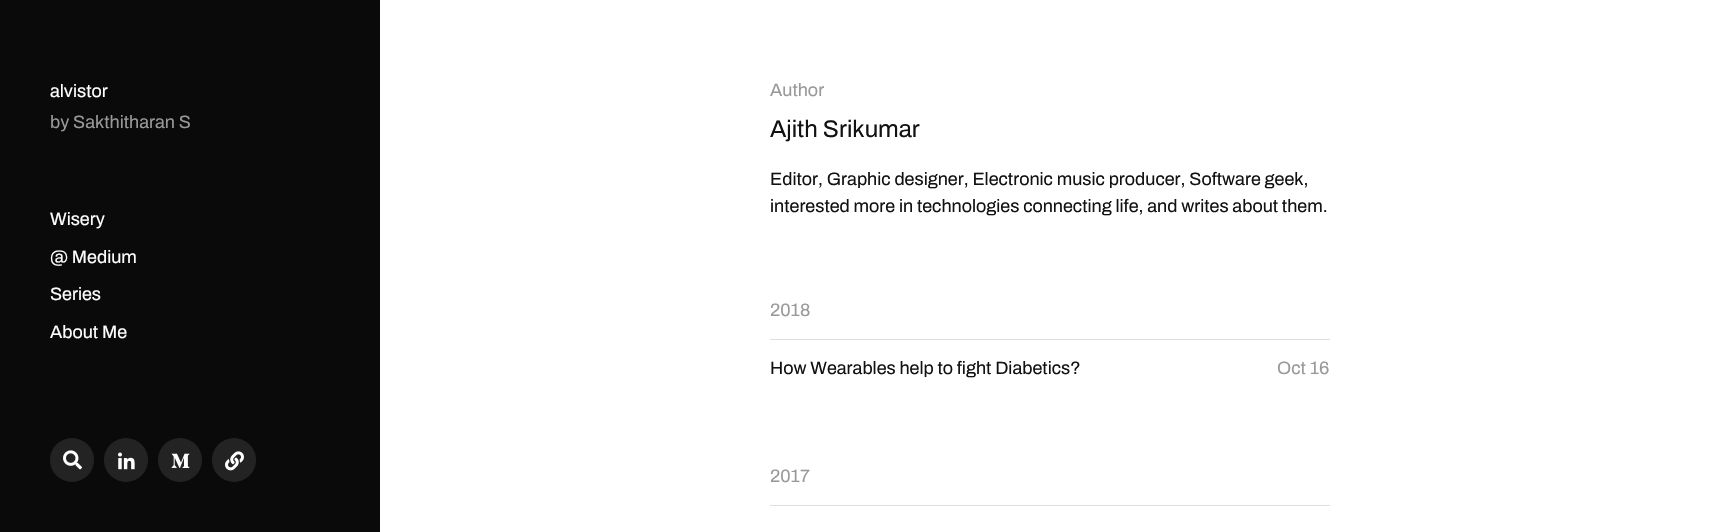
#include "include/core/SkBlurTypes.h"
#include "include/core/SkCanvas.h"
#include "include/core/SkData.h"
#include "include/core/SkFont.h"
#include "include/core/SkFontMgr.h"
#include "include/core/SkImage.h"
#include "include/core/SkMaskFilter.h"
#include "include/core/SkPaint.h"
#include "include/core/SkPathBuilder.h"
#include "include/core/SkTextBlob.h"
#include "include/effects/SkDashPathEffect.h"
#include "include/effects/SkGradientShader.h"
#include "include/utils/SkParsePath.h"

extern sk_sp<SkFontMgr> fontMgr;

void draw(SkCanvas* canvas) {
    SkPaint p;
    p.setAntiAlias(true);
    auto font = [&](const char* family, int weight, float size, bool italic = false) {
        SkFontStyle style(weight, SkFontStyle::kNormal_Width,
            italic ? SkFontStyle::kItalic_Slant : SkFontStyle::kUpright_Slant);
        SkFont result(fontMgr->matchFamilyStyle(family, style), size);
        result.setSubpixel(true);
        return result;
    };
    auto drawPhoto = [&](const char* path, float l, float t, float r, float b) {
        auto image = SkImages::DeferredFromEncodedData(SkData::MakeFromFileName(path));
        canvas->drawImageRect(image, SkRect::MakeLTRB(l, t, r, b), SkSamplingOptions());
    };
    canvas->clear(0xFFFFFFFF);
    p.setColor(0xFF0A0A0A);
    canvas->drawRect(SkRect::MakeLTRB(0, 0, 380, 532), p);
    auto font1 = font("Archivo", 600, 18);
    p.setColor(0xFFFFFFFF);
    canvas->drawString("alvistor", 50, 97, font1, p);
    p.setColor(0xFF99999B);
    canvas->drawString("by Sakthitharan S", 50, 128, font1, p);
    p.setColor(0xFFFFFFFF);
    {
        const struct { const char* s; float x, y; } items[] = {
            {"Wisery", 50, 225},
            {"@ Medium", 50, 263},
            {"Series", 50, 300},
            {"About Me", 50, 338},
        };
        for (auto [s, x, y] : items) {
            canvas->drawString(s, x, y, font1, p);
        }
    }
    p.setColor(0xFF232323);
    canvas->drawCircle(72, 460, 22, p);
    drawPhoto("media/1.png", 63, 450, 82, 470);
    canvas->drawCircle(126, 460, 22, p);
    drawPhoto("media/2.png", 118, 452, 135, 470);
    canvas->drawCircle(180, 460, 22, p);
    drawPhoto("media/3.png", 171, 453, 190, 468);
    canvas->drawCircle(234, 460, 22, p);
    drawPhoto("media/4.png", 225, 451, 244, 471);
    p.setColor(0xFF99999B);
    canvas->drawString("Author", 770, 96, font1, p);
    auto font2 = font("Archivo", 600, 24);
    p.setColor(0xFF121212);
    canvas->drawString("Ajith Srikumar", 770, 137, font2, p);
    canvas->drawString("Editor, Graphic designer, Electronic music producer, Software geek,", 770, 185, font1, p);
    canvas->drawString("interested more in technologies connecting life, and writes about them.", 770, 212, font1, p);
    p.setColor(0xFF99999B);
    canvas->drawString("2018", 770, 316, font1, p);
    p.setColor(0xFFDFDFE0);
    canvas->drawRect(SkRect::MakeLTRB(770, 339, 1330, 340), p);
    p.setColor(0xFF121212);
    canvas->drawString("How Wearables help to fight Diabetics?", 770, 374, font1, p);
    p.setColor(0xFF99999B);
    canvas->drawString("Oct 16", 1277, 374, font1, p);
    canvas->drawString("2017", 770, 482, font1, p);
    p.setColor(0xFFDFDFE0);
    canvas->drawRect(SkRect::MakeLTRB(770, 505, 1330, 506), p);
}
